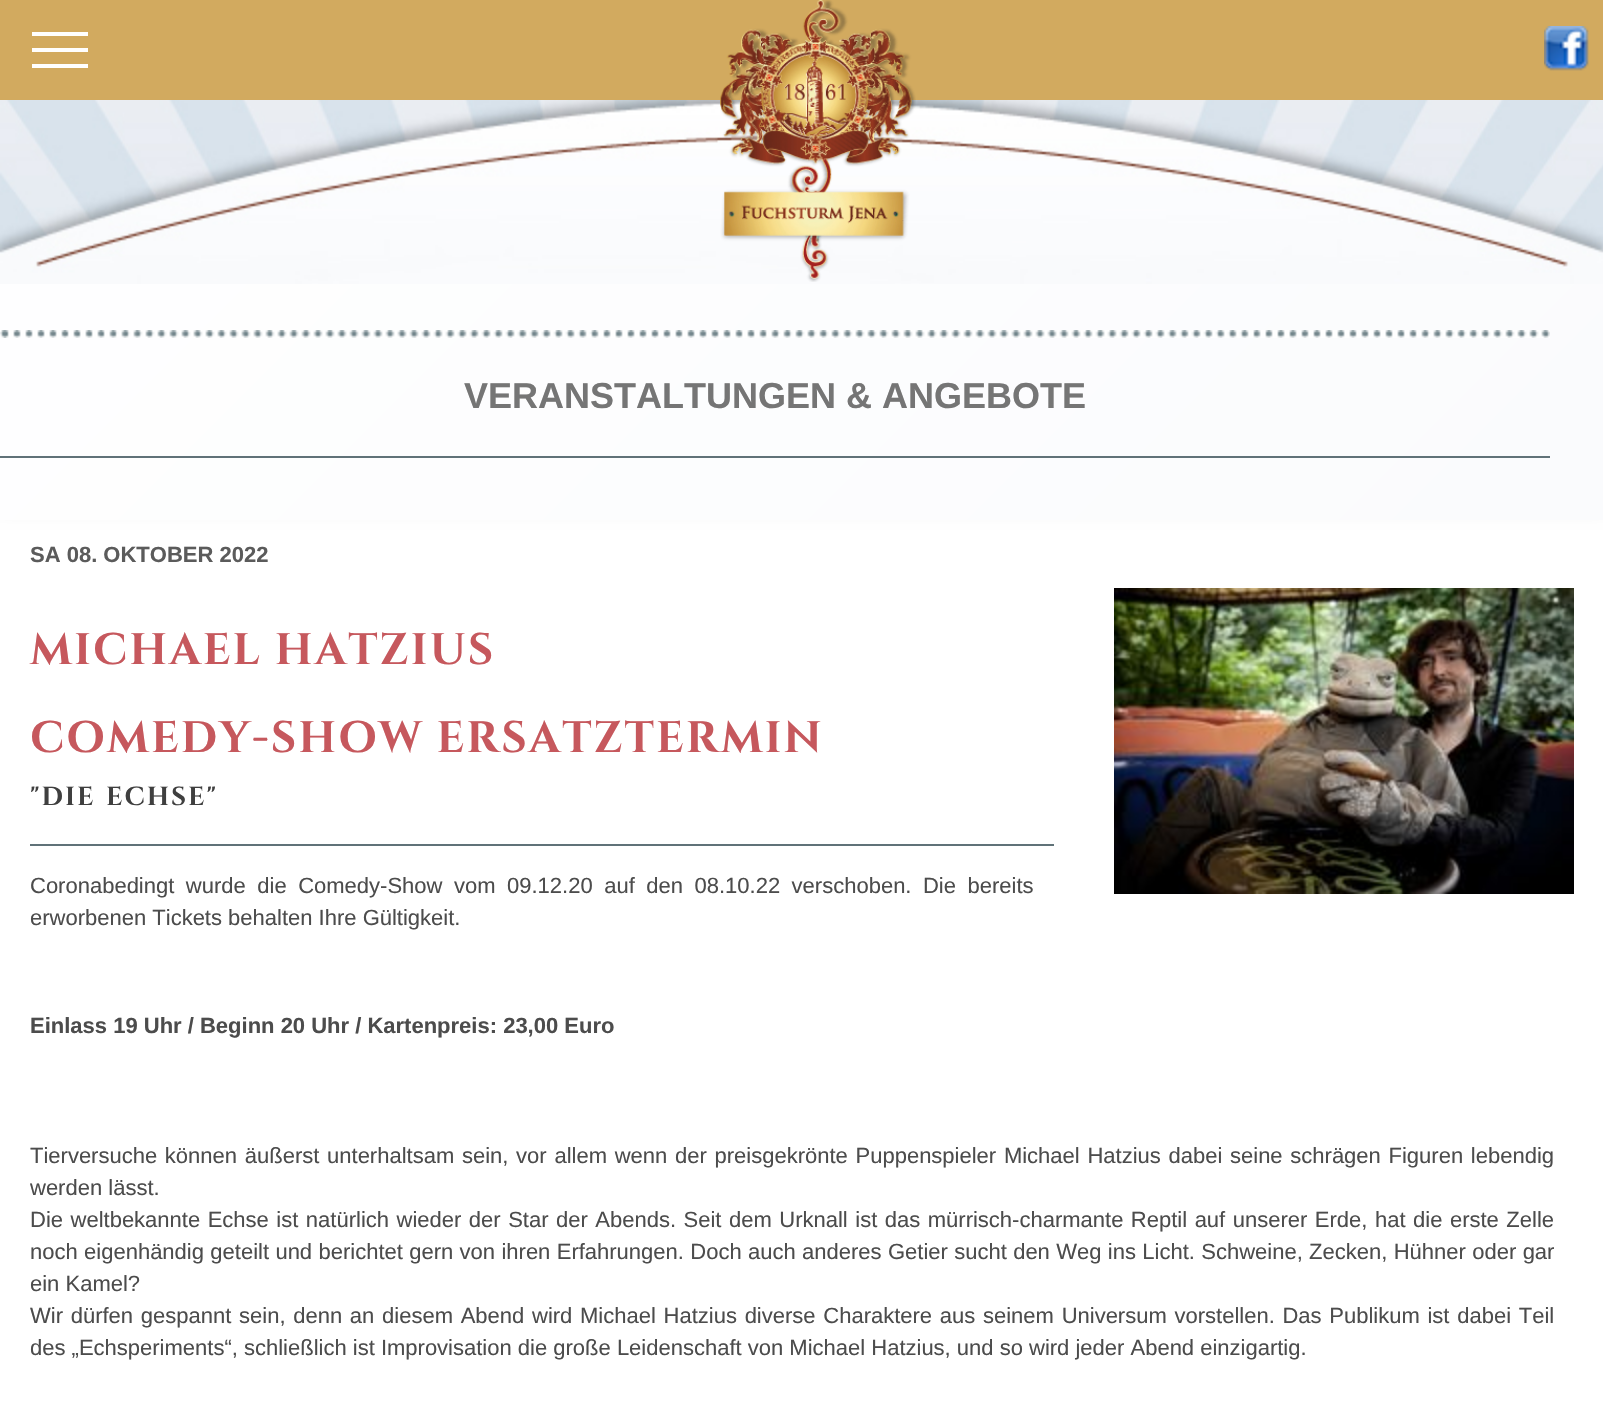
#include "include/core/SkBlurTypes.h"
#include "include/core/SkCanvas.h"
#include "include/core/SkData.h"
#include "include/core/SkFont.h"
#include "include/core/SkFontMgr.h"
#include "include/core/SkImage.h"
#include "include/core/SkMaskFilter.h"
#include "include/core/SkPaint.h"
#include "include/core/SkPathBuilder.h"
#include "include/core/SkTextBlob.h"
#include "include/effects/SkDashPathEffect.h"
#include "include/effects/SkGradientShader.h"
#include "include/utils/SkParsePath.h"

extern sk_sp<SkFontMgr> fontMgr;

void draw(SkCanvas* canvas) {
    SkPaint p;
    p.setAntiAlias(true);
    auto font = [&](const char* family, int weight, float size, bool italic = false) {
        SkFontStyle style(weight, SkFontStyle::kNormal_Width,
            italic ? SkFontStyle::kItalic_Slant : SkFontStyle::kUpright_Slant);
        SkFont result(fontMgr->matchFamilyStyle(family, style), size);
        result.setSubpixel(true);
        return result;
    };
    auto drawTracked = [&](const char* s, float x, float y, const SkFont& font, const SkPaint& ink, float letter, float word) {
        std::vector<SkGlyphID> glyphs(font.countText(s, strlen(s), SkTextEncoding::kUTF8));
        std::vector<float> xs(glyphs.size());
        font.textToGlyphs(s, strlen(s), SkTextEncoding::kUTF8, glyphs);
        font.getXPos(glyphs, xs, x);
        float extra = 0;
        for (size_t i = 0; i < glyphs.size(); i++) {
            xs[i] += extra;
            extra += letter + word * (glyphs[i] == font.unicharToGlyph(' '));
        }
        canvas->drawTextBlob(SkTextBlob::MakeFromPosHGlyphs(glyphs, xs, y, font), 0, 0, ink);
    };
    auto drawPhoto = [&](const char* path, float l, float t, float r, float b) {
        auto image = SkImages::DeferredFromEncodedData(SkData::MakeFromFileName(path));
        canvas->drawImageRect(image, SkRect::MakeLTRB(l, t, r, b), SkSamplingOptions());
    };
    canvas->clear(0xFFFFFFFF);
    p.setColor(0xFF777777);
    p.setMaskFilter(SkMaskFilter::MakeBlur(kNormal_SkBlurStyle, 10));
    canvas->drawRect(SkRect::MakeLTRB(0, -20, 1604, 500), p);
    p.setMaskFilter(nullptr);
    {
        const SkColor colors[] = {0xFFFFFFFF, 0xFFFAFBFD};
        const float stops[] = {0, 1};
        const SkPoint ends[] = {{271, -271}, {1333, 791}};
        p.setShader(SkGradientShader::MakeLinear(ends, colors, stops, 2, SkTileMode::kClamp));
        p.setAlpha(255);
    }
    canvas->drawRect(SkRect::MakeLTRB(0, 284, 1603, 520), p);
    drawPhoto("media/1.png", 0, 100, 1603, 284);
    p.setShader(nullptr);
    {
        const struct { float l, t, r, b; SkColor color; } items[] = {
            {0, 0, 1603, 100, 0xFFD2AA5F},
            {32, 32, 88, 36, 0xFFFFFFFF},
            {32, 48, 88, 52, 0xFFFFFFFF},
            {32, 64, 88, 68, 0xFFFFFFFF},
        };
        for (auto [l, t, r, b, color] : items) {
            p.setColor(color);
            canvas->drawRect(SkRect::MakeLTRB(l, t, r, b), p);
        }
    }
    drawPhoto("media/2.png", 720, 0, 916, 282);
    drawPhoto("media/3.png", 1544, 26, 1589, 71);
    drawPhoto("media/4.png", 0, 330, 1550, 338);
    p.setColor(0xFF607278);
    canvas->drawRect(SkRect::MakeLTRB(0, 456, 1550, 458), p);
    auto font1 = font("Liberation Sans", 700, 36);
    p.setColor(0xFF757575);
    canvas->drawString("VERANSTALTUNGEN & ANGEBOTE", 464, 408, font1, p);
    auto font2 = font("Liberation Sans", 700, 22);
    p.setColor(0xFF5B5B5B);
    canvas->drawString("SA 08. OKTOBER 2022", 30, 562, font2, p);
    auto font3 = font("Cinzel", 700, 44);
    p.setColor(0xFFC6585D);
    drawTracked("MICHAEL HATZIUS", 30, 664, font3, p, 2, 0);
    drawTracked("COMEDY-SHOW ERSATZTERMIN", 30, 752, font3, p, 2, 0);
    auto font4 = font("Cinzel", 700, 26);
    p.setColor(0xFF3F3F3F);
    drawTracked("\"DIE ECHSE\"", 30, 805, font4, p, 2, 2);
    p.setColor(0xFF607278);
    canvas->drawRect(SkRect::MakeLTRB(30, 844, 1054, 846), p);
    auto font5 = font("Liberation Sans", 400, 22);
    p.setColor(0xFF4C4C4C);
    drawTracked("Coronabedingt wurde die Comedy-Show vom 09.12.20 auf den 08.10.22 verschoben. Die bereits", 30, 893, font5, p, 0, 5.4f);
    canvas->drawString("erworbenen Tickets behalten Ihre Gültigkeit.", 30, 925, font5, p);
    canvas->drawString("Einlass 19 Uhr / Beginn 20 Uhr / Kartenpreis: 23,00 Euro", 30, 1033, font2, p);
    drawPhoto("media/5.png", 1114, 588, 1574, 894);
    drawTracked("Tierversuche können äußerst unterhaltsam sein, vor allem wenn der preisgekrönte Puppenspieler Michael Hatzius dabei seine schrägen Figuren lebendig", 30, 1163, font5, p, 0, 1.6f);
    canvas->drawString("werden lässt.", 30, 1195, font5, p);
    drawTracked("Die weltbekannte Echse ist natürlich wieder der Star der Abends. Seit dem Urknall ist das mürrisch-charmante Reptil auf unserer Erde, hat die erste Zelle", 30, 1227, font5, p, 0, 1.4f);
    drawTracked("noch eigenhändig geteilt und berichtet gern von ihren Erfahrungen. Doch auch anderes Getier sucht den Weg ins Licht. Schweine, Zecken, Hühner oder gar", 30, 1259, font5, p, 0, 0.25f);
    canvas->drawString("ein Kamel?", 30, 1291, font5, p);
    drawTracked("Wir dürfen gespannt sein, denn an diesem Abend wird Michael Hatzius diverse Charaktere aus seinem Universum vorstellen. Das Publikum ist dabei Teil", 30, 1323, font5, p, 0, 1.6f);
    canvas->drawString("des „Echsperiments“, schließlich ist Improvisation die große Leidenschaft von Michael Hatzius, und so wird jeder Abend einzigartig.", 30, 1355, font5, p);
}
